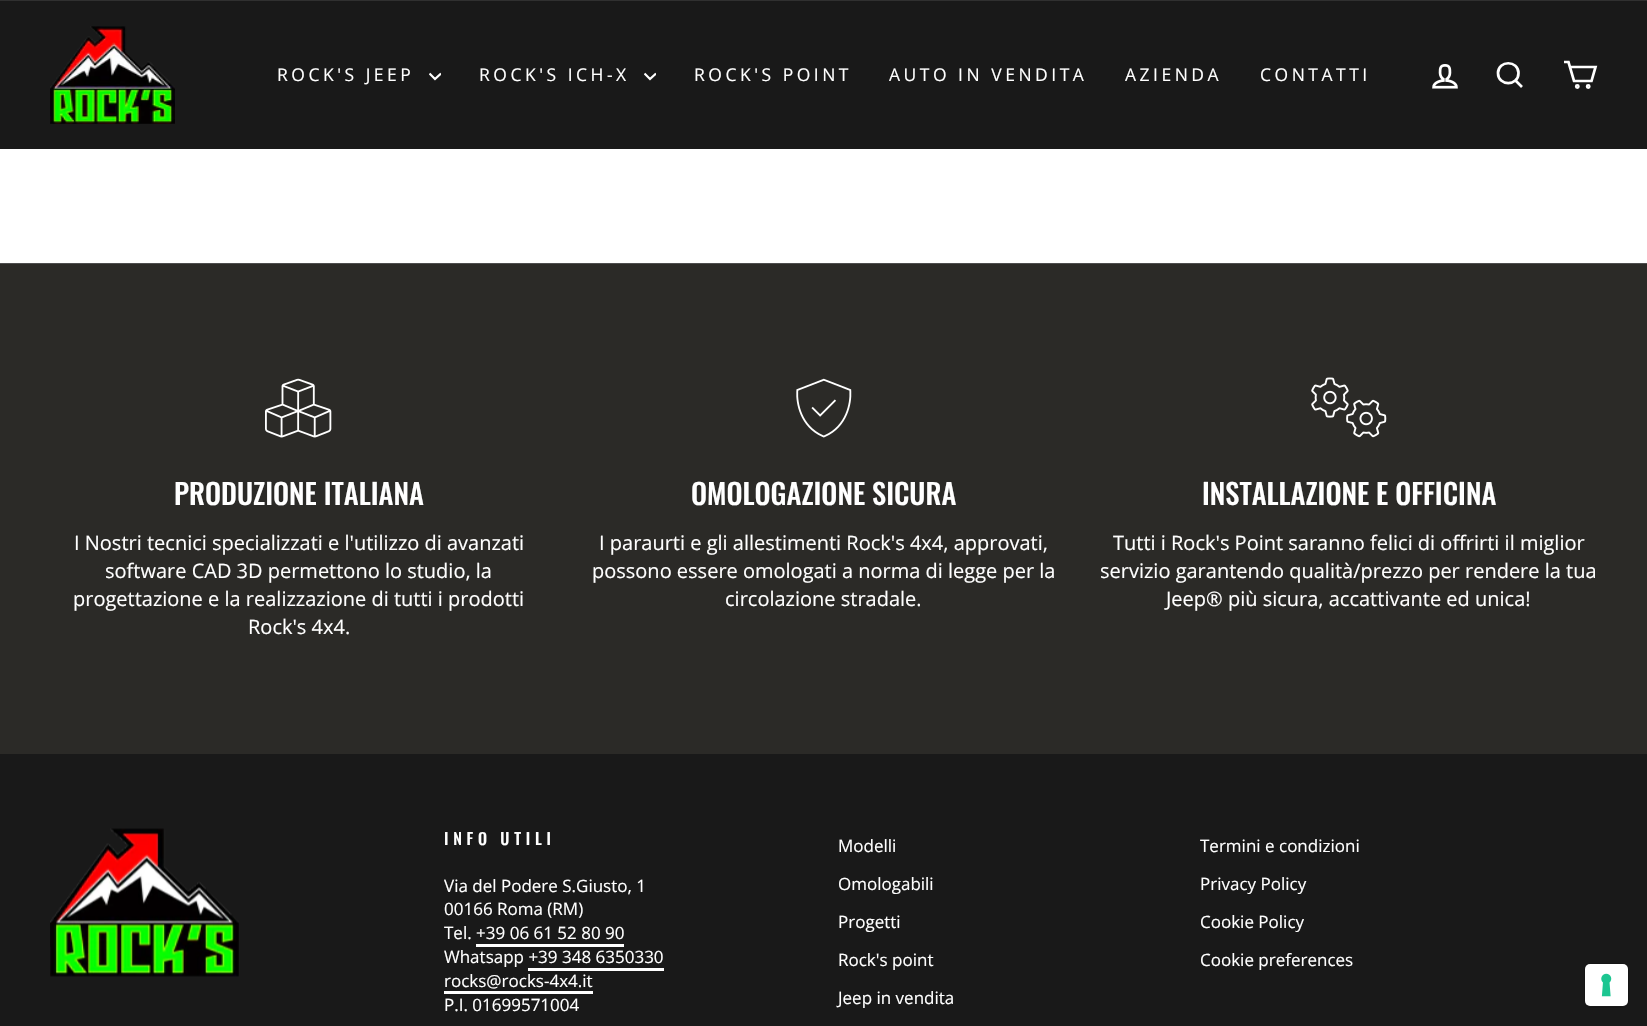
#include "include/core/SkBlurTypes.h"
#include "include/core/SkCanvas.h"
#include "include/core/SkData.h"
#include "include/core/SkFont.h"
#include "include/core/SkFontMgr.h"
#include "include/core/SkImage.h"
#include "include/core/SkMaskFilter.h"
#include "include/core/SkPaint.h"
#include "include/core/SkPathBuilder.h"
#include "include/core/SkTextBlob.h"
#include "include/effects/SkDashPathEffect.h"
#include "include/effects/SkGradientShader.h"
#include "include/utils/SkParsePath.h"

extern sk_sp<SkFontMgr> fontMgr;

void draw(SkCanvas* canvas) {
    SkPaint p;
    p.setAntiAlias(true);
    auto font = [&](const char* family, int weight, float size, bool italic = false) {
        SkFontStyle style(weight, SkFontStyle::kNormal_Width,
            italic ? SkFontStyle::kItalic_Slant : SkFontStyle::kUpright_Slant);
        SkFont result(fontMgr->matchFamilyStyle(family, style), size);
        result.setSubpixel(true);
        return result;
    };
    auto drawTracked = [&](const char* s, float x, float y, const SkFont& font, const SkPaint& ink, float letter, float word) {
        std::vector<SkGlyphID> glyphs(font.countText(s, strlen(s), SkTextEncoding::kUTF8));
        std::vector<float> xs(glyphs.size());
        font.textToGlyphs(s, strlen(s), SkTextEncoding::kUTF8, glyphs);
        font.getXPos(glyphs, xs, x);
        float extra = 0;
        for (size_t i = 0; i < glyphs.size(); i++) {
            xs[i] += extra;
            extra += letter + word * (glyphs[i] == font.unicharToGlyph(' '));
        }
        canvas->drawTextBlob(SkTextBlob::MakeFromPosHGlyphs(glyphs, xs, y, font), 0, 0, ink);
    };
    auto drawPhoto = [&](const char* path, float l, float t, float r, float b) {
        auto image = SkImages::DeferredFromEncodedData(SkData::MakeFromFileName(path));
        canvas->drawImageRect(image, SkRect::MakeLTRB(l, t, r, b), SkSamplingOptions());
    };
    canvas->clear(0xFF2B2A27);
    p.setColor(0xFF191919);
    canvas->drawRect(SkRect::MakeLTRB(0, 1, 1647, 149), p);
    p.setColor(0xFF303030);
    canvas->drawRect(SkRect::MakeLTRB(0, 0, 1647, 1), p);
    drawPhoto("media/1.png", 50, 26, 175, 124);
    auto font1 = font("Open Sans", 400, 17.5f);
    p.setColor(0xFFFFFFFF);
    drawTracked("ROCK'S JEEP", 277, 81, font1, p, 3.5f, 0);
    canvas->save();
    canvas->clipRect(SkRect::MakeLTRB(429, 70, 441, 83));
    p.setStyle(SkPaint::kStroke_Style);
    p.setStrokeWidth(2.2f);
    canvas->drawPath(SkPathBuilder().moveTo(429.5f, 73.5f).lineTo(435, 79).lineTo(441, 73.5f).detach(), p);
    canvas->restore();
    p.setStyle(SkPaint::kFill_Style);
    drawTracked("ROCK'S ICH-X", 479, 81, font1, p, 3.5f, 0);
    canvas->save();
    canvas->clipRect(SkRect::MakeLTRB(644, 70, 656, 83));
    p.setStyle(SkPaint::kStroke_Style);
    canvas->drawPath(SkPathBuilder().moveTo(644.5f, 73.5f).lineTo(650, 79).lineTo(656, 73.5f).detach(), p);
    canvas->restore();
    p.setStyle(SkPaint::kFill_Style);
    {
        const struct { const char* s; float x, y; } items[] = {
            {"ROCK'S POINT", 694, 81},
            {"AUTO IN VENDITA", 889, 81},
            {"AZIENDA", 1125, 81},
            {"CONTATTI", 1260, 81},
        };
        for (auto [s, x, y] : items) {
            drawTracked(s, x, y, font1, p, 3.5f, 0);
        }
    }
    drawPhoto("media/2.png", 1432, 64, 1458, 89);
    p.setStyle(SkPaint::kStroke_Style);
    p.setStrokeWidth(2.7f);
    canvas->drawPath(SkPathBuilder().moveTo(1518.5f, 73).cubicTo(1518.5f, 86.5f, 1498, 86.5f, 1498, 73).cubicTo(1498, 60, 1518.5f, 60, 1518.5f, 73).close().moveTo(1522, 87).lineTo(1515.5f, 80.5f).detach(), p);
    canvas->drawPath(SkPathBuilder().moveTo(1570, 67).lineTo(1595.5f, 67).lineTo(1591.5f, 81).lineTo(1574, 81).lineTo(1568.5f, 62).lineTo(1564, 62).detach(), p);
    canvas->drawCircle(1577.3f, 86.5f, 1.1f, p);
    canvas->drawCircle(1588.2f, 86.5f, 1.1f, p);
    p.setStyle(SkPaint::kFill_Style);
    canvas->drawRect(SkRect::MakeLTRB(0, 149, 1647, 263), p);
    p.setColor(0xFF4E4E4E);
    canvas->drawRect(SkRect::MakeLTRB(0, 263, 1647, 264), p);
    drawPhoto("media/3.png", 265, 378, 332, 438);
    auto font2 = font("Oswald", 500, 28.5f);
    p.setColor(0xFFFFFFFF);
    canvas->drawString("PRODUZIONE ITALIANA", 174, 505, font2, p);
    auto font3 = font("Open Sans", 400, 20);
    {
        const struct { const char* s; float x, y; } items[] = {
            {"I Nostri tecnici specializzati e l'utilizzo di avanzati", 74, 550},
            {"software CAD 3D permettono lo studio, la", 105, 578},
            {"progettazione e la realizzazione di tutti i prodotti", 73, 606},
            {"Rock's 4x4.", 248, 634},
        };
        for (auto [s, x, y] : items) {
            canvas->drawString(s, x, y, font3, p);
        }
    }
    drawPhoto("media/4.png", 796, 378, 852, 438);
    canvas->drawString("OMOLOGAZIONE SICURA", 691, 505, font2, p);
    {
        const struct { const char* s; float x, y; } items[] = {
            {"I paraurti e gli allestimenti Rock's 4x4, approvati,", 599, 550},
            {"possono essere omologati a norma di legge per la", 592, 578},
            {"circolazione stradale.", 725, 606},
        };
        for (auto [s, x, y] : items) {
            canvas->drawString(s, x, y, font3, p);
        }
    }
    drawPhoto("media/5.png", 1311, 377, 1387, 438);
    canvas->drawString("INSTALLAZIONE E OFFICINA", 1202, 505, font2, p);
    {
        const struct { const char* s; float x, y; } items[] = {
            {"Tutti i Rock's Point saranno felici di offrirti il miglior", 1113, 550},
            {"servizio garantendo qualità/prezzo per rendere la tua", 1100, 578},
            {"Jeep® più sicura, accattivante ed unica!", 1166, 606},
        };
        for (auto [s, x, y] : items) {
            canvas->drawString(s, x, y, font3, p);
        }
    }
    p.setColor(0xFF191919);
    canvas->drawRect(SkRect::MakeLTRB(0, 754, 1647, 1026), p);
    drawPhoto("media/6.png", 50, 828, 239, 977);
    auto font4 = font("Oswald", 500, 16);
    p.setColor(0xFFFFFFFF);
    drawTracked("INFO UTILI", 444, 845, font4, p, 4.75f, 0);
    auto font5 = font("Open Sans", 400, 17);
    {
        const struct { const char* s; float x, y; } items[] = {
            {"Via del Podere S.Giusto, 1", 444, 892},
            {"00166 Roma (RM)", 444, 915},
            {"Tel. +39 06 61 52 80 90", 444, 939},
        };
        for (auto [s, x, y] : items) {
            canvas->drawString(s, x, y, font5, p);
        }
    }
    canvas->drawRect(SkRect::MakeLTRB(476, 944, 624, 947), p);
    canvas->drawString("Whatsapp +39 348 6350330", 444, 963, font5, p);
    canvas->drawRect(SkRect::MakeLTRB(528, 968, 664, 971), p);
    canvas->drawString("rocks@rocks-4x4.it", 444, 987, font5, p);
    canvas->drawRect(SkRect::MakeLTRB(444, 991, 593, 994), p);
    {
        const struct { const char* s; float x, y; } items[] = {
            {"P.I. 01699571004", 444, 1011},
            {"Modelli", 838, 852},
            {"Omologabili", 838, 890},
            {"Progetti", 838, 928},
            {"Rock's point", 838, 966},
            {"Jeep in vendita", 838, 1004},
            {"Termini e condizioni", 1200, 852},
            {"Privacy Policy", 1200, 890},
            {"Cookie Policy", 1200, 928},
            {"Cookie preferences", 1200, 966},
        };
        for (auto [s, x, y] : items) {
            canvas->drawString(s, x, y, font5, p);
        }
    }
    p.setStyle(SkPaint::kStroke_Style);
    p.setStrokeWidth(1);
    p.setColor(0xFF151515);
    canvas->drawRoundRect(SkRect::MakeLTRB(1584.5f, 963.5f, 1628.5f, 1007.5f), 5.5f, 5.5f, p);
    p.setStyle(SkPaint::kFill_Style);
    p.setColor(0xFFFFFFFF);
    canvas->drawRoundRect(SkRect::MakeLTRB(1585, 964, 1628, 1006), 5, 5, p);
    drawPhoto("media/7.png", 1601, 973, 1612, 997);
}
